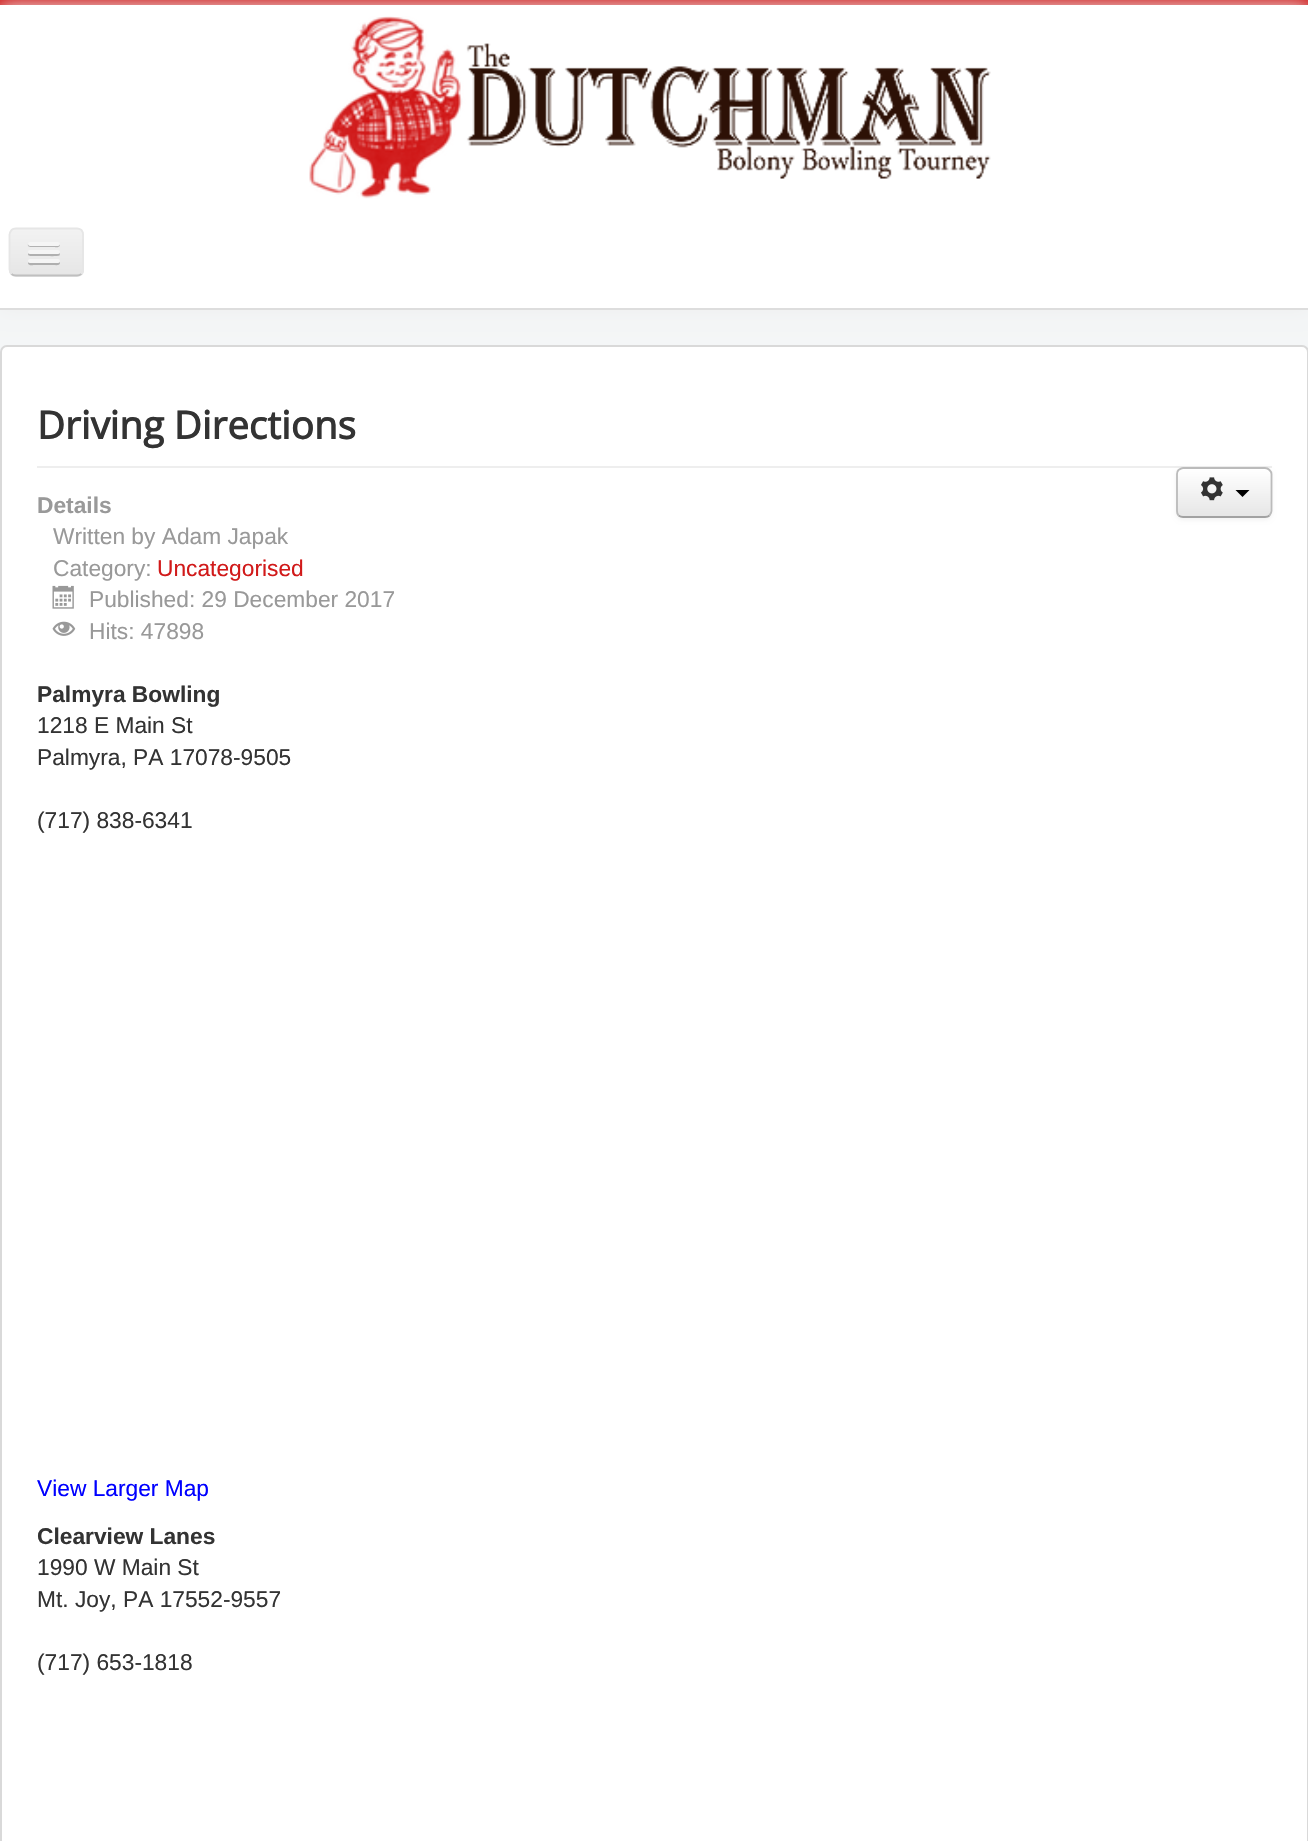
#include "include/core/SkBlurTypes.h"
#include "include/core/SkCanvas.h"
#include "include/core/SkData.h"
#include "include/core/SkFont.h"
#include "include/core/SkFontMgr.h"
#include "include/core/SkImage.h"
#include "include/core/SkMaskFilter.h"
#include "include/core/SkPaint.h"
#include "include/core/SkPathBuilder.h"
#include "include/core/SkTextBlob.h"
#include "include/effects/SkDashPathEffect.h"
#include "include/effects/SkGradientShader.h"
#include "include/utils/SkParsePath.h"

extern sk_sp<SkFontMgr> fontMgr;

void draw(SkCanvas* canvas) {
    SkPaint p;
    p.setAntiAlias(true);
    auto font = [&](const char* family, int weight, float size, bool italic = false) {
        SkFontStyle style(weight, SkFontStyle::kNormal_Width,
            italic ? SkFontStyle::kItalic_Slant : SkFontStyle::kUpright_Slant);
        SkFont result(fontMgr->matchFamilyStyle(family, style), size);
        result.setSubpixel(true);
        return result;
    };
    auto drawPhoto = [&](const char* path, float l, float t, float r, float b) {
        auto image = SkImages::DeferredFromEncodedData(SkData::MakeFromFileName(path));
        canvas->drawImageRect(image, SkRect::MakeLTRB(l, t, r, b), SkSamplingOptions());
    };
    canvas->clear(0xFFF4F6F7);
    p.setColor(0xFFD11A1A);
    canvas->drawRect(SkRect::MakeLTRB(0, 0, 1308, 5), p);
    p.setColor(0xFFEEEEEE);
    p.setMaskFilter(SkMaskFilter::MakeBlur(kNormal_SkBlurStyle, 9));
    canvas->drawRect(SkRect::MakeLTRB(0, 5, 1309, 310), p);
    p.setMaskFilter(nullptr);
    p.setColor(0xFFFFFFFF);
    canvas->drawRect(SkRect::MakeLTRB(0, 5, 1308, 308), p);
    p.setColor(0xFFDDDDDD);
    canvas->drawRect(SkRect::MakeLTRB(0, 308, 1308, 310), p);
    drawPhoto("media/1.png", 309, 16, 991, 199);
    p.setColor(0xFFEDEDED);
    canvas->drawRoundRect(SkRect::MakeLTRB(9, 228, 84, 277), 7, 7, p);
    canvas->save();
    canvas->clipPath(SkPathBuilder().moveTo(16, 228).lineTo(77, 228).cubicTo(81, 228, 84, 231, 84, 235).lineTo(84, 270).cubicTo(84, 274, 81, 277, 77, 277).lineTo(16, 277).cubicTo(12, 277, 9, 274, 9, 270).lineTo(9, 235).cubicTo(9, 231, 12, 228, 16, 228).close().detach(), true);
    {
        const SkColor colors[] = {0xFFF2F2F2, 0xFFE6E6E6};
        const float stops[] = {0, 1};
        const SkPoint ends[] = {{46, 229}, {46, 275}};
        p.setShader(SkGradientShader::MakeLinear(ends, colors, stops, 2, SkTileMode::kClamp));
        p.setAlpha(255);
    }
    canvas->drawRect(SkRect::MakeLTRB(9, 229, 84, 275), p);
    canvas->restore();
    p.setStyle(SkPaint::kStroke_Style);
    p.setStrokeWidth(1.8f);
    p.setShader(nullptr);
    p.setColor(0xFFBFBFBF);
    canvas->drawPath(SkPathBuilder().moveTo(81.5f, 274).cubicTo(80, 275, 78.5f, 275.5f, 77, 275.5f).lineTo(16, 275.5f).cubicTo(14, 275.5f, 12.5f, 275, 11.5f, 274).detach(), p);
    p.setColor(0xFFE6E6E6);
    canvas->drawPath(SkPathBuilder().moveTo(11.5f, 274).cubicTo(10.5f, 272.5f, 9.5f, 271, 9.5f, 269.5f).lineTo(9.5f, 234.5f).cubicTo(9.5f, 233, 10.5f, 231.5f, 11.5f, 230).cubicTo(12.5f, 229, 14, 228.5f, 16, 228.5f).lineTo(77, 228.5f).cubicTo(78.5f, 228.5f, 80, 229, 81.5f, 230).cubicTo(82.5f, 231.5f, 83, 233, 83, 234.5f).lineTo(83, 269.5f).cubicTo(83, 271, 82.5f, 272.5f, 81.5f, 274).detach(), p);
    p.setStyle(SkPaint::kFill_Style);
    p.setColor(0xFFB2B2B2);
    canvas->drawPath(SkPathBuilder().moveTo(28, 244).cubicTo(26.5f, 248, 34, 247, 34.5f, 247).lineTo(53.5f, 247).cubicTo(54.5f, 247, 59.5f, 248, 60, 245.5f).cubicTo(60, 245, 60, 244, 59.5f, 243.5f).cubicTo(59.5f, 244.5f, 58.5f, 245, 58, 245).lineTo(30, 245).cubicTo(29, 245, 28.5f, 244.5f, 28, 244).close().detach(), p);
    p.setColor(0xFFF5F5F5);
    canvas->drawRoundRect(SkRect::MakeLTRB(28, 242, 60, 246), 2, 2, p);
    p.setColor(0xFFB0B0B0);
    canvas->drawPath(SkPathBuilder().moveTo(28.5f, 253).cubicTo(26, 257, 34, 256, 34.5f, 256).lineTo(44, 256).cubicTo(46.5f, 256, 58, 256.5f, 59.5f, 255.5f).cubicTo(60, 254.5f, 60, 253.5f, 59.5f, 252.5f).lineTo(58.5f, 253.5f).lineTo(29.5f, 253.5f).close().detach(), p);
    p.setColor(0xFFF5F5F5);
    canvas->drawRoundRect(SkRect::MakeLTRB(28, 250, 60, 254), 2, 2, p);
    p.setColor(0xFFAFAFAF);
    canvas->drawPath(SkPathBuilder().moveTo(28.5f, 262).lineTo(28, 263.5f).cubicTo(28.5f, 266, 33.5f, 265, 34.5f, 265).lineTo(53.5f, 265).cubicTo(55, 265, 60, 266, 60, 263).lineTo(59.5f, 261.5f).cubicTo(59, 262, 58.5f, 262.5f, 58, 262.5f).lineTo(29.5f, 262.5f).close().detach(), p);
    p.setColor(0xFFF5F5F5);
    canvas->drawRoundRect(SkRect::MakeLTRB(28, 259, 60, 263), 2, 2, p);
    p.setColor(0xFFFFFFFF);
    canvas->drawRoundRect(SkRect::MakeLTRB(0, 345, 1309, 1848), 7, 7, p);
    p.setStyle(SkPaint::kStroke_Style);
    p.setStrokeWidth(2);
    p.setColor(0x26000000);
    canvas->drawRoundRect(SkRect::MakeLTRB(1, 346, 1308, 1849), 6, 6, p);
    p.setStyle(SkPaint::kFill_Style);
    p.setColor(0xFFEEEEEE);
    canvas->drawRect(SkRect::MakeLTRB(37, 466, 1272, 468), p);
    auto font1 = font("Open Sans", 700, 38.5f);
    p.setColor(0xFF333333);
    canvas->drawString("Driving Directions", 37, 439, font1, p);
    auto font2 = font("Liberation Sans", 700, 22.75f);
    p.setColor(0xFF999999);
    canvas->drawString("Details", 37, 513, font2, p);
    auto font3 = font("Liberation Sans", 400, 22.75f);
    canvas->drawString("Written by Adam Japak", 53, 544, font3, p);
    canvas->drawString("Category:", 53, 576, font3, p);
    p.setColor(0xFFD11A1A);
    canvas->drawString("Uncategorised", 157, 576, font3, p);
    drawPhoto("media/2.png", 52, 585, 74, 609);
    p.setColor(0xFF999999);
    canvas->drawString("Published: 29 December 2017", 89, 607, font3, p);
    drawPhoto("media/3.png", 52, 621, 76, 636);
    canvas->drawString("Hits: 47898", 89, 639, font3, p);
    p.setColor(0x0D000000);
    p.setMaskFilter(SkMaskFilter::MakeBlur(kNormal_SkBlurStyle, 2));
    canvas->drawRoundRect(SkRect::MakeLTRB(1176, 469, 1272, 520), 7, 7, p);
    p.setMaskFilter(nullptr);
    p.setColor(0xFFF5F5F5);
    canvas->drawRoundRect(SkRect::MakeLTRB(1176, 467, 1272, 518), 7, 7, p);
    canvas->save();
    canvas->clipPath(SkPathBuilder().moveTo(1183, 467).lineTo(1265, 467).cubicTo(1269, 467, 1272, 470, 1272, 474).lineTo(1272, 511).cubicTo(1272, 515, 1269, 518, 1265, 518).lineTo(1183, 518).cubicTo(1179, 518, 1176, 515, 1176, 511).lineTo(1176, 474).cubicTo(1176, 470, 1179, 467, 1183, 467).close().detach(), true);
    {
        const SkColor colors[] = {0xFFFFFFFF, 0xFFE6E6E6};
        const float stops[] = {0, 1};
        const SkPoint ends[] = {{1224, 469}, {1224, 516}};
        p.setShader(SkGradientShader::MakeLinear(ends, colors, stops, 2, SkTileMode::kClamp));
        p.setAlpha(255);
    }
    canvas->drawRect(SkRect::MakeLTRB(1176, 469, 1272, 516), p);
    canvas->restore();
    p.setShader(nullptr);
    p.setColor(0x33FFFFFF);
    canvas->drawPath(SkPathBuilder().moveTo(1183, 471).lineTo(1251, 471).cubicTo(1272, 471, 1270, 469, 1270, 488).lineTo(1270, 514).cubicTo(1271, 513, 1271, 512, 1271, 511).lineTo(1271, 474).cubicTo(1271, 471, 1269, 469, 1266, 469).lineTo(1183, 469).cubicTo(1180, 469, 1178, 471, 1178, 474).lineTo(1178, 476).cubicTo(1178, 473, 1180, 471, 1183, 471).close().detach(), p);
    p.setStyle(SkPaint::kStroke_Style);
    p.setStrokeWidth(1.8f);
    p.setColor(0xFFA2A2A2);
    canvas->drawPath(SkPathBuilder().moveTo(1269.5f, 515.5f).cubicTo(1268.5f, 516.5f, 1267, 517, 1265, 517).lineTo(1183, 517).cubicTo(1181.5f, 517, 1180, 516.5f, 1178.5f, 515.5f).detach(), p);
    p.setColor(0xFFBBBBBB);
    canvas->drawPath(SkPathBuilder().moveTo(1178.5f, 515.5f).cubicTo(1177.5f, 514, 1177, 512.5f, 1177, 511).lineTo(1177, 474).cubicTo(1177, 472.5f, 1177.5f, 471, 1178.5f, 470).cubicTo(1180, 469, 1181.5f, 468, 1183, 468).lineTo(1265, 468).cubicTo(1267, 468, 1268.5f, 469, 1269.5f, 470).cubicTo(1270.5f, 471, 1271.5f, 472.5f, 1271.5f, 474).lineTo(1271.5f, 511).cubicTo(1271.5f, 512.5f, 1270.5f, 514, 1269.5f, 515.5f).detach(), p);
    drawPhoto("media/4.png", 1201, 477, 1223, 501);
    p.setStyle(SkPaint::kFill_Style);
    p.setColor(0xFF000000);
    canvas->drawPath(SkPathBuilder().moveTo(1235.5f, 490).lineTo(1249.5f, 490).lineTo(1242.5f, 497).close().detach(), p);
    p.setColor(0xFF333333);
    canvas->drawString("Palmyra Bowling", 37, 702, font2, p);
    {
        const struct { const char* s; float x, y; } items[] = {
            {"1218 E Main St", 37, 733},
            {"Palmyra, PA 17078-9505", 37, 765},
            {"(717) 838-6341", 37, 828},
        };
        for (auto [s, x, y] : items) {
            canvas->drawString(s, x, y, font3, p);
        }
    }
    p.setColor(0xFF0000FF);
    canvas->drawString("View Larger Map", 37, 1496, font3, p);
    p.setColor(0xFF333333);
    canvas->drawString("Clearview Lanes", 37, 1544, font2, p);
    {
        const struct { const char* s; float x, y; } items[] = {
            {"1990 W Main St", 37, 1575},
            {"Mt. Joy, PA 17552-9557", 37, 1607},
            {"(717) 653-1818", 37, 1670},
        };
        for (auto [s, x, y] : items) {
            canvas->drawString(s, x, y, font3, p);
        }
    }
}
